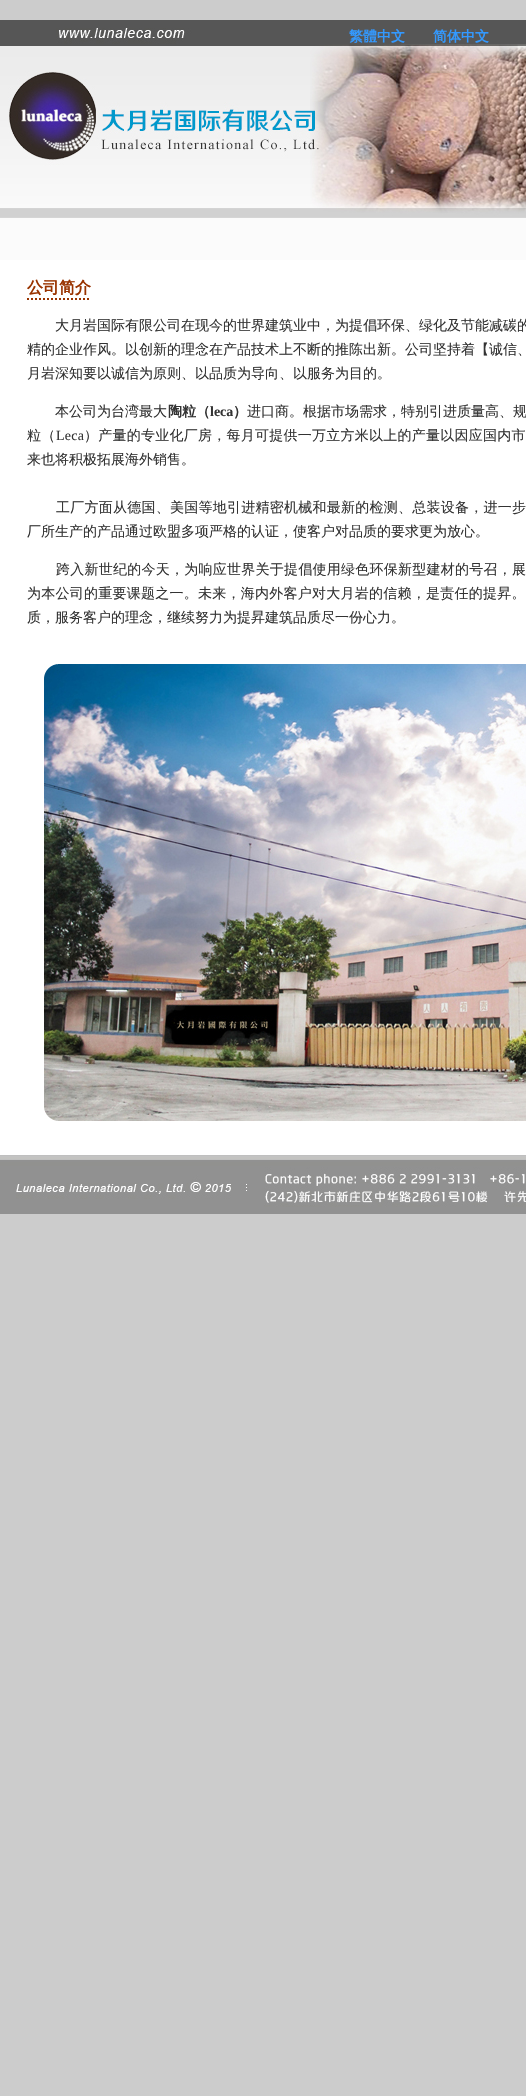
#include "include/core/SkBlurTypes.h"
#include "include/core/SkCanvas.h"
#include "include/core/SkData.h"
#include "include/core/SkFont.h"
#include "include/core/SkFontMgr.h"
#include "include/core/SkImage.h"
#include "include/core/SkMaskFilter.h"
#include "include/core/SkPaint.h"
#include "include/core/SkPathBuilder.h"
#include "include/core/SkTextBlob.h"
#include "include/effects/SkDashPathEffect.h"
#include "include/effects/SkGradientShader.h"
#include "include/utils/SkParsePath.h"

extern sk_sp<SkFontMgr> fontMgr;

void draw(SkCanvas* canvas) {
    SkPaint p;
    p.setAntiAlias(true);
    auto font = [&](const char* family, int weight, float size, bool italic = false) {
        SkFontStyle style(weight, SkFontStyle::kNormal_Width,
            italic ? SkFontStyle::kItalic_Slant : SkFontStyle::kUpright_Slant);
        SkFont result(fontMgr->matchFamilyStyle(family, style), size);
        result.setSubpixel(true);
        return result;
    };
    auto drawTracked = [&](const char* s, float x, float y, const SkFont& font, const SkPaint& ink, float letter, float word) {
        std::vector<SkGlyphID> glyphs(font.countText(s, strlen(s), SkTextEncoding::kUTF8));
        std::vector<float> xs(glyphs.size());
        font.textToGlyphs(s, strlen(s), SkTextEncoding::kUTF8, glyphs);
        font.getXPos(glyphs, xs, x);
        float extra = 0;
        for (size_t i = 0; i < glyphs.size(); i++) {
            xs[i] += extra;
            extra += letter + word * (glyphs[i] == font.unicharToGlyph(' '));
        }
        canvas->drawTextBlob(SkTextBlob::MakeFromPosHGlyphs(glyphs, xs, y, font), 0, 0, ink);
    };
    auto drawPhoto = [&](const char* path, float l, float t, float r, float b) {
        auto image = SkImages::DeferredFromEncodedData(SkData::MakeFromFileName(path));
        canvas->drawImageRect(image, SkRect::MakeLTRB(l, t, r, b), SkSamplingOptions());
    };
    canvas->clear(0xFFCCCCCC);
    drawPhoto("media/1.png", 0, 20, 231, 46);
    drawPhoto("media/2.png", 231, 20, 526, 46);
    auto font1 = font("WenQuanYi Zen Hei", 700, 14);
    p.setColor(0xFF3399FF);
    canvas->drawString("繁體中文", 349, 41, font1, p);
    canvas->drawString("简体中文", 433, 41, font1, p);
    drawPhoto("media/3.png", 0, 46, 526, 208);
    drawPhoto("media/4.png", 0, 208, 526, 218);
    p.setColor(0xFFFBFBFB);
    canvas->drawRect(SkRect::MakeLTRB(0, 218, 526, 260), p);
    p.setColor(0xFFFFFFFF);
    canvas->drawRect(SkRect::MakeLTRB(0, 260, 526, 1143), p);
    auto font2 = font("WenQuanYi Zen Hei", 700, 16);
    p.setColor(0xFF993300);
    canvas->drawString("公司简介", 27, 293, font2, p);
    p.setStyle(SkPaint::kStroke_Style);
    p.setStrokeWidth(2);
    p.setPathEffect(SkDashPathEffect::Make({{2, 2}}, 0));
    canvas->drawPath(SkPathBuilder().moveTo(27, 299).lineTo(91, 299).detach(), p);
    p.setPathEffect(nullptr);
    auto font3 = font("WenQuanYi Zen Hei", 500, 14);
    p.setStyle(SkPaint::kFill_Style);
    p.setColor(0xFF333333);
    {
        const struct { const char* s; float x, y; } items[] = {
            {"大月岩国际有限公司在现今的世界建筑业中，为提倡环保、绿化及节能减碳的", 55, 330},
            {"精的企业作风。以创新的理念在产品技术上不断的推陈出新。公司坚持着【诚信、", 27, 354},
            {"月岩深知要以诚信为原则、以品质为导向、以服务为目的。", 27, 378},
            {"本公司为台湾最大", 55, 416},
        };
        for (auto [s, x, y] : items) {
            canvas->drawString(s, x, y, font3, p);
        }
    }
    canvas->drawString("陶粒（", 168, 416, font1, p);
    auto font4 = font("Liberation Serif", 700, 14);
    canvas->drawString("leca", 210, 416, font4, p);
    canvas->drawString("）", 233, 416, font1, p);
    canvas->drawString("进口商。根据市场需求，特别引进质量高、规", 247, 416, font3, p);
    drawTracked("粒（", 27, 440, font3, p, 0.25f, 0);
    auto font5 = font("Liberation Serif", 400, 14);
    drawTracked("Leca", 56, 440, font5, p, 0.25f, 0);
    drawTracked("）产量的专业化厂房，每月可提供一万立方米以上的产量以因应国内市", 84, 440, font3, p, 0.25f, 0);
    canvas->drawString("来也将积极拓展海外销售。", 27, 464, font3, p);
    drawTracked("工厂方面从德国、美国等地引进精密机械和最新的检测、总装设备，进一步", 56, 512, font3, p, 0.25f, 0);
    canvas->drawString("厂所生产的产品通过欧盟多项严格的认证，使客户对品质的要求更为放心。", 27, 536, font3, p);
    drawTracked("跨入新世纪的今天，为响应世界关于提倡使用绿色环保新型建材的号召，展", 56, 574, font3, p, 0.25f, 0);
    drawTracked("为本公司的重要课题之一。未来，海内外客户对大月岩的信赖，是责任的提昇。", 27, 598, font3, p, 0.25f, 0);
    canvas->drawString("质，服务客户的理念，继续努力为提昇建筑品质尽一份心力。", 27, 622, font3, p);
    drawPhoto("media/5.png", 44, 664, 526, 1121);
    drawPhoto("media/6.png", 0, 1143, 526, 1214);
}
